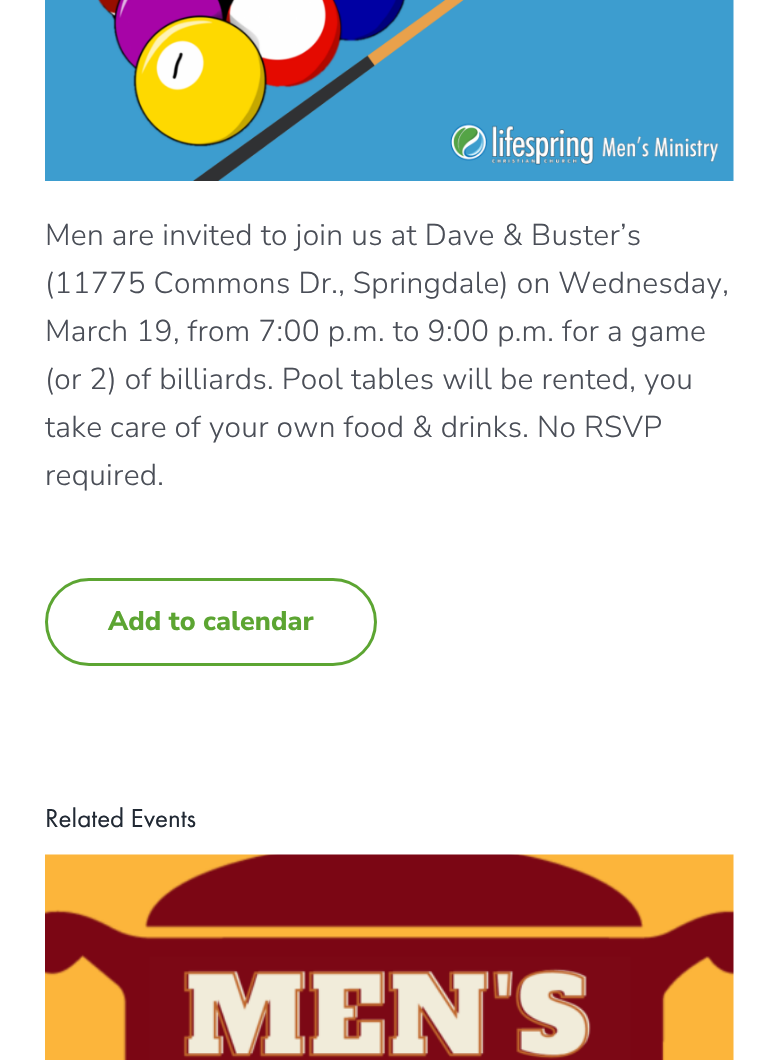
#include "include/core/SkBlurTypes.h"
#include "include/core/SkCanvas.h"
#include "include/core/SkData.h"
#include "include/core/SkFont.h"
#include "include/core/SkFontMgr.h"
#include "include/core/SkImage.h"
#include "include/core/SkMaskFilter.h"
#include "include/core/SkPaint.h"
#include "include/core/SkPathBuilder.h"
#include "include/core/SkTextBlob.h"
#include "include/effects/SkDashPathEffect.h"
#include "include/effects/SkGradientShader.h"
#include "include/utils/SkParsePath.h"

extern sk_sp<SkFontMgr> fontMgr;

void draw(SkCanvas* canvas) {
    SkPaint p;
    p.setAntiAlias(true);
    auto font = [&](const char* family, int weight, float size, bool italic = false) {
        SkFontStyle style(weight, SkFontStyle::kNormal_Width,
            italic ? SkFontStyle::kItalic_Slant : SkFontStyle::kUpright_Slant);
        SkFont result(fontMgr->matchFamilyStyle(family, style), size);
        result.setSubpixel(true);
        return result;
    };
    auto drawTracked = [&](const char* s, float x, float y, const SkFont& font, const SkPaint& ink, float letter, float word) {
        std::vector<SkGlyphID> glyphs(font.countText(s, strlen(s), SkTextEncoding::kUTF8));
        std::vector<float> xs(glyphs.size());
        font.textToGlyphs(s, strlen(s), SkTextEncoding::kUTF8, glyphs);
        font.getXPos(glyphs, xs, x);
        float extra = 0;
        for (size_t i = 0; i < glyphs.size(); i++) {
            xs[i] += extra;
            extra += letter + word * (glyphs[i] == font.unicharToGlyph(' '));
        }
        canvas->drawTextBlob(SkTextBlob::MakeFromPosHGlyphs(glyphs, xs, y, font), 0, 0, ink);
    };
    auto drawPhoto = [&](const char* path, float l, float t, float r, float b) {
        auto image = SkImages::DeferredFromEncodedData(SkData::MakeFromFileName(path));
        canvas->drawImageRect(image, SkRect::MakeLTRB(l, t, r, b), SkSamplingOptions());
    };
    canvas->clear(0xFFFFFFFF);
    drawPhoto("media/1.png", 45, 0, 734, 181);
    auto font1 = font("Nunito Sans", 300, 30);
    p.setColor(0xFF4A4E57);
    {
        const struct { const char* s; float x, y; } items[] = {
            {"Men are invited to join us at Dave & Buster’s", 45, 245},
            {"(11775 Commons Dr., Springdale) on Wednesday,", 45, 293},
            {"March 19, from 7:00 p.m. to 9:00 p.m. for a game", 45, 341},
            {"(or 2) of billiards. Pool tables will be rented, you", 45, 389},
            {"take care of your own food & drinks. No RSVP", 45, 437},
            {"required.", 45, 485},
        };
        for (auto [s, x, y] : items) {
            drawTracked(s, x, y, font1, p, 0.3f, 0);
        }
    }
    p.setStyle(SkPaint::kStroke_Style);
    p.setStrokeWidth(3);
    p.setColor(0xFF5CA532);
    canvas->drawRoundRect(SkRect::MakeLTRB(46.5f, 579.5f, 375.5f, 664.5f), 42.5f, 42.5f, p);
    auto font2 = font("Nunito Sans", 800, 27);
    p.setStyle(SkPaint::kFill_Style);
    canvas->drawString("Add to calendar", 108, 630, font2, p);
    auto font3 = font("Futura PT", 400, 27);
    p.setColor(0xFF212934);
    canvas->drawString("Related Events", 45, 827, font3, p);
    drawPhoto("media/2.png", 45, 854, 734, 1060);
}
